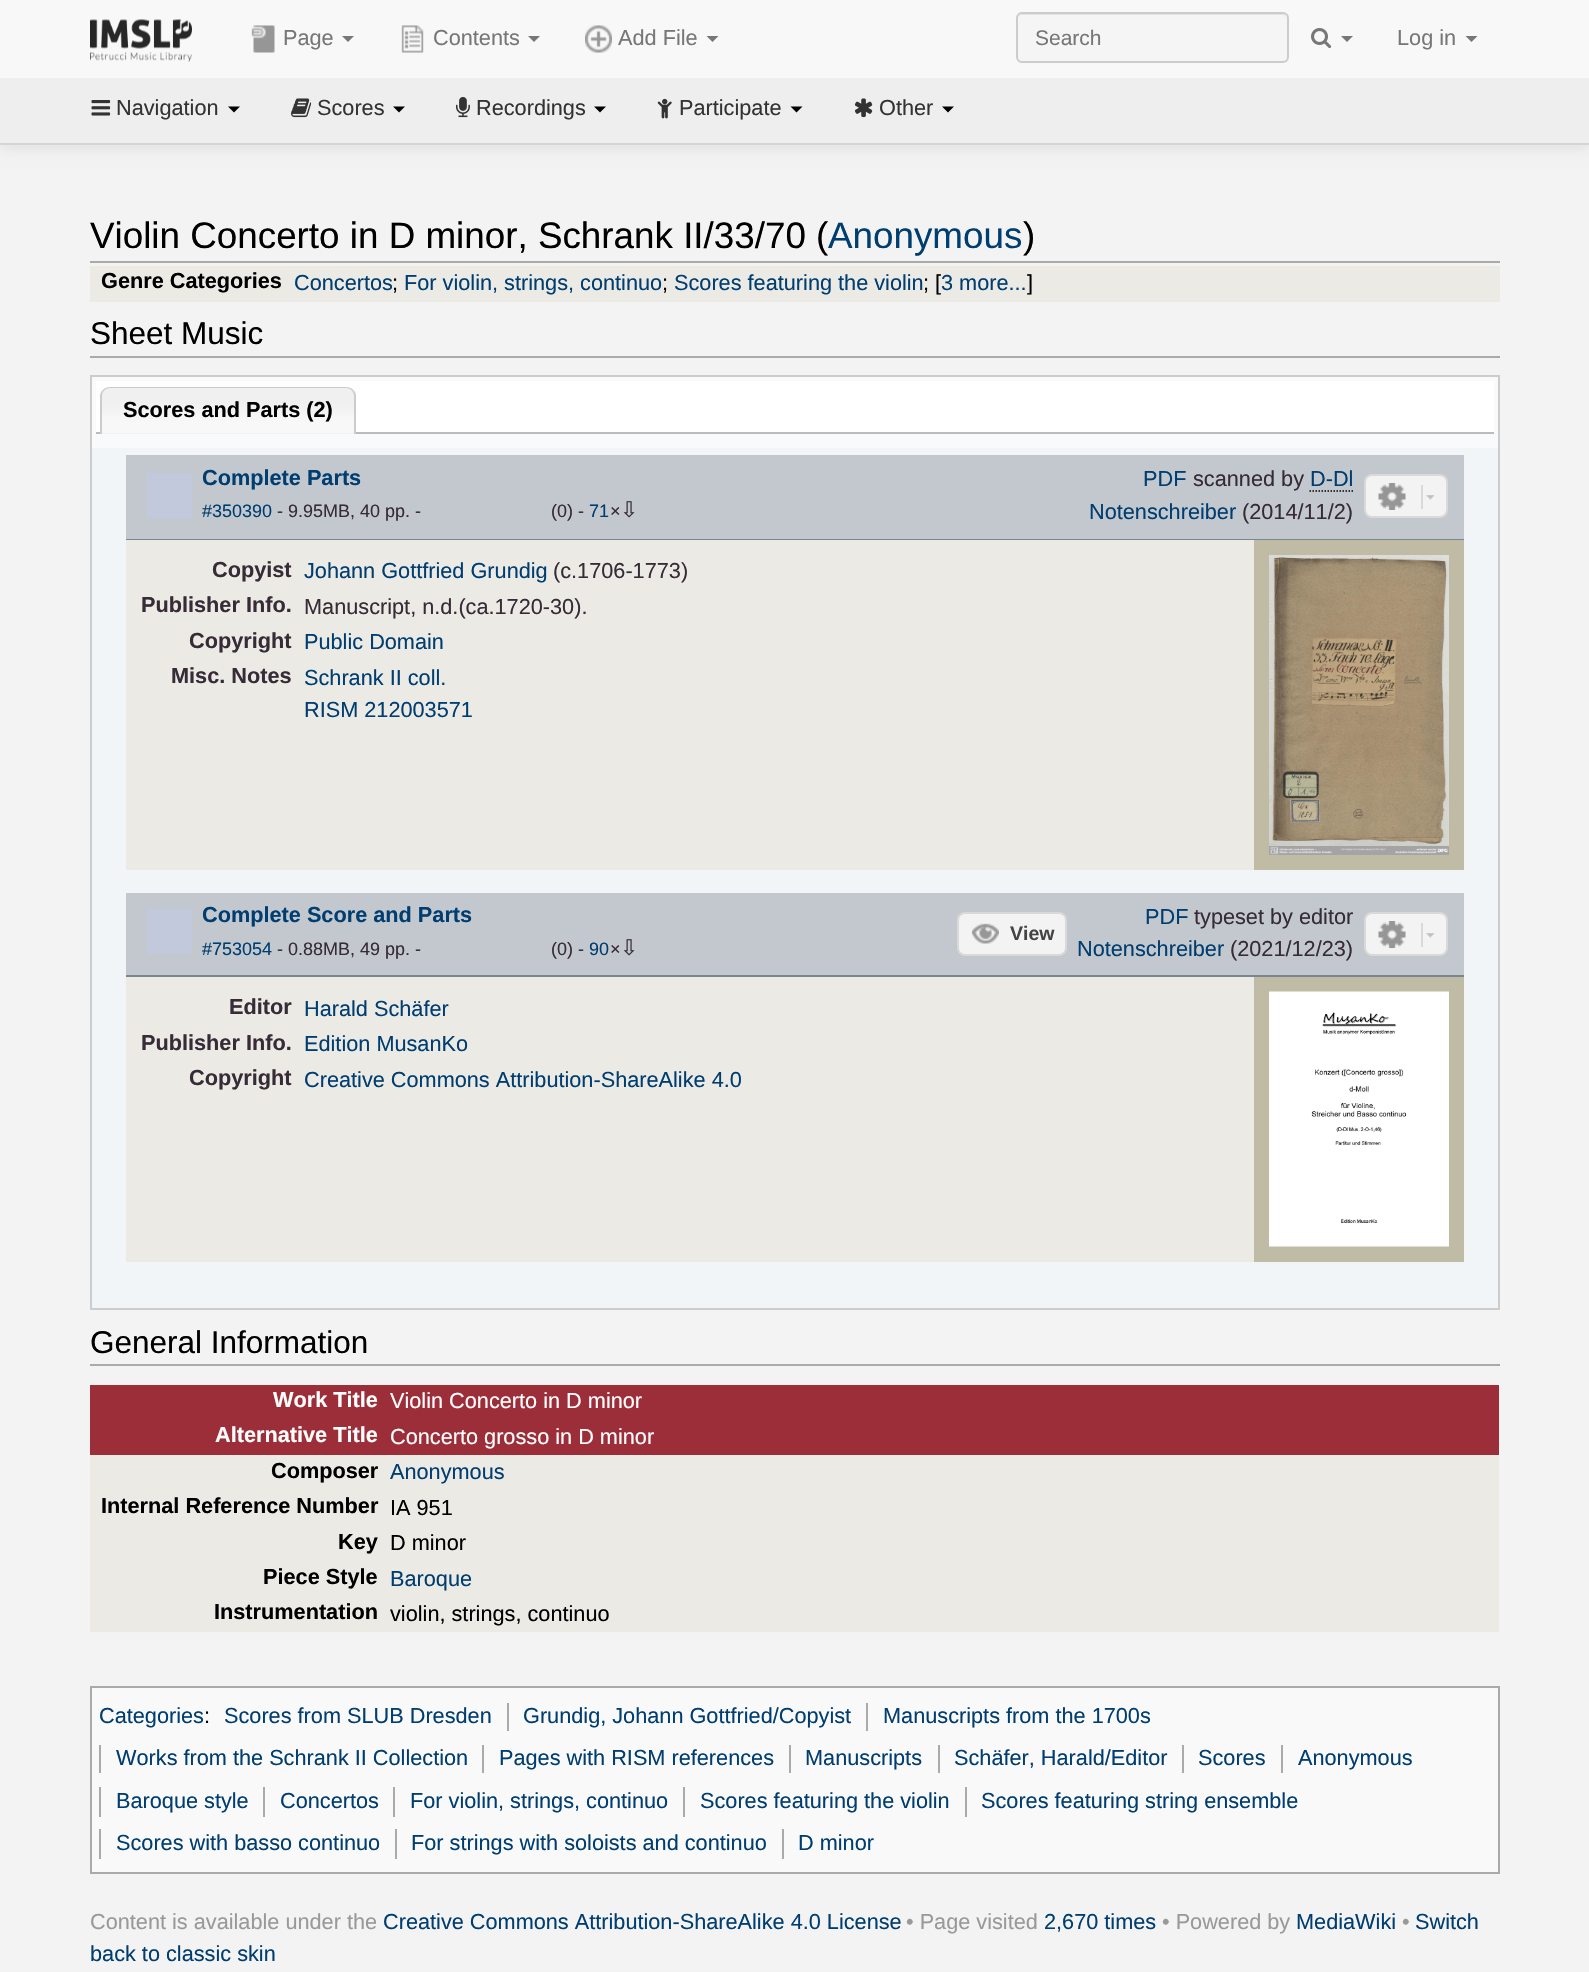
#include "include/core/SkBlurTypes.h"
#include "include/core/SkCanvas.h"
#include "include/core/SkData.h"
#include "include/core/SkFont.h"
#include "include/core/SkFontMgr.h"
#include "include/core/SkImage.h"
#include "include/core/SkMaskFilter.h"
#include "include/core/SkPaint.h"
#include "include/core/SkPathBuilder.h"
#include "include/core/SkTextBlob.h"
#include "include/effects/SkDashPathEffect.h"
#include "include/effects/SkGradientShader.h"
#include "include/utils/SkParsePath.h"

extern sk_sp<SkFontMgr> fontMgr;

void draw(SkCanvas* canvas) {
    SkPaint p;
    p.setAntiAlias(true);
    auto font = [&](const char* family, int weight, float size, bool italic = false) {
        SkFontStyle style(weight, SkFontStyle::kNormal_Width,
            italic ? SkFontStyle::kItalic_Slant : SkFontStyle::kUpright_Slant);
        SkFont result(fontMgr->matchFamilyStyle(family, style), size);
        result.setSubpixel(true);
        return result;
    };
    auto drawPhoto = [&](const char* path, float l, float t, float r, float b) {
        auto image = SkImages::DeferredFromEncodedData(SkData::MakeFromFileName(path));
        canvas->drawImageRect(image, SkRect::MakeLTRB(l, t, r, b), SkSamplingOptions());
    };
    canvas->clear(0xFFF3F3F3);
    p.setColor(0x1A000000);
    p.setMaskFilter(SkMaskFilter::MakeBlur(kNormal_SkBlurStyle, 7.5f));
    canvas->drawRect(SkRect::MakeLTRB(0, 80, 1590, 146), p);
    p.setMaskFilter(nullptr);
    p.setColor(0xFFF8F8F8);
    canvas->drawRect(SkRect::MakeLTRB(0, 0, 1589, 78), p);
    drawPhoto("media/1.png", 90, 19, 192, 62);
    drawPhoto("media/2.png", 251, 25, 275, 53);
    auto font1 = font("Liberation Sans", 400, 21.7f);
    p.setColor(0xFF777777);
    canvas->drawString("Page", 283, 45, font1, p);
    canvas->drawPath(SkPathBuilder().moveTo(342, 36).lineTo(354, 36).lineTo(348, 42).close().detach(), p);
    drawPhoto("media/3.png", 401, 25, 424, 53);
    canvas->drawString("Contents", 433, 45, font1, p);
    canvas->drawPath(SkPathBuilder().moveTo(528, 36).lineTo(540, 36).lineTo(534, 42).close().detach(), p);
    drawPhoto("media/4.png", 585, 25, 612, 53);
    canvas->drawString("Add File", 618, 45, font1, p);
    canvas->drawPath(SkPathBuilder().moveTo(706.5f, 36).lineTo(718.5f, 36).lineTo(712.5f, 42).close().detach(), p);
    p.setColor(0xFFF5F5F5);
    canvas->drawRoundRect(SkRect::MakeLTRB(1016, 12, 1289, 63), 6, 6, p);
    p.setColor(0xFFE3E3E3);
    canvas->drawPath(SkPathBuilder().moveTo(1022, 15).lineTo(1282, 15).cubicTo(1285, 15, 1287, 17, 1287, 20).cubicTo(1287, 17, 1285, 14, 1282, 14).lineTo(1022, 14).cubicTo(1019, 14, 1017, 17, 1017, 20).cubicTo(1017, 17, 1019, 15, 1022, 15).close().detach(), p);
    p.setStyle(SkPaint::kStroke_Style);
    p.setStrokeWidth(2);
    p.setColor(0xFFCCCCCC);
    canvas->drawRoundRect(SkRect::MakeLTRB(1017, 13, 1288, 62), 5, 5, p);
    auto font2 = font("Liberation Sans", 400, 21);
    p.setStyle(SkPaint::kFill_Style);
    p.setColor(0xFF777777);
    canvas->drawString("Search", 1035, 45, font2, p);
    drawPhoto("media/5.png", 1311, 28, 1332, 49);
    canvas->drawPath(SkPathBuilder().moveTo(1341, 36).lineTo(1353, 36).lineTo(1347, 42).close().detach(), p);
    canvas->drawString("Log in", 1397, 45, font1, p);
    canvas->drawPath(SkPathBuilder().moveTo(1465.5f, 36).lineTo(1477.5f, 36).lineTo(1471.5f, 42).close().detach(), p);
    p.setColor(0xFFEEEEEE);
    canvas->drawRect(SkRect::MakeLTRB(0, 78, 1589, 143), p);
    p.setColor(0xFFD5D5D5);
    canvas->drawRect(SkRect::MakeLTRB(0, 143, 1589, 145), p);
    drawPhoto("media/6.png", 91, 100, 111, 116);
    p.setColor(0xFF333333);
    canvas->drawString("Navigation", 116, 115, font1, p);
    p.setColor(0xFF000000);
    canvas->drawPath(SkPathBuilder().moveTo(228, 106.5f).lineTo(240, 106.5f).lineTo(234, 112.5f).close().detach(), p);
    drawPhoto("media/7.png", 291, 98, 312, 118);
    p.setColor(0xFF333333);
    canvas->drawString("Scores", 317, 115, font1, p);
    p.setColor(0xFF000000);
    canvas->drawPath(SkPathBuilder().moveTo(393, 106.5f).lineTo(405, 106.5f).lineTo(399, 112.5f).close().detach(), p);
    drawPhoto("media/8.png", 456, 97, 470, 118);
    p.setColor(0xFF333333);
    canvas->drawString("Recordings", 476, 115, font1, p);
    p.setColor(0xFF000000);
    canvas->drawPath(SkPathBuilder().moveTo(594, 106.5f).lineTo(606, 106.5f).lineTo(600, 112.5f).close().detach(), p);
    drawPhoto("media/9.png", 657, 98, 672, 119);
    p.setColor(0xFF333333);
    canvas->drawString("Participate", 679, 115, font1, p);
    p.setColor(0xFF000000);
    canvas->drawPath(SkPathBuilder().moveTo(790.5f, 106.5f).lineTo(802.5f, 106.5f).lineTo(796.5f, 112.5f).close().detach(), p);
    drawPhoto("media/10.png", 854, 98, 873, 118);
    p.setColor(0xFF333333);
    canvas->drawString("Other", 879, 115, font1, p);
    p.setColor(0xFF000000);
    canvas->drawPath(SkPathBuilder().moveTo(942, 106.5f).lineTo(954, 106.5f).lineTo(948, 112.5f).close().detach(), p);
    p.setColor(0xFFAAAAAA);
    canvas->drawRect(SkRect::MakeLTRB(90, 261, 1500, 263), p);
    auto font3 = font("Liberation Sans", 400, 36.8f);
    p.setColor(0xFF000000);
    canvas->drawString("Violin Concerto in D minor, Schrank II/33/70 (", 90, 248, font3, p);
    p.setColor(0xFF003D70);
    canvas->drawString("Anonymous", 828, 248, font3, p);
    p.setColor(0xFF000000);
    canvas->drawString(")", 1023, 248, font3, p);
    p.setColor(0xFFEBEAE4);
    canvas->drawRect(SkRect::MakeLTRB(90, 266, 1500, 302), p);
    auto font4 = font("Liberation Sans", 700, 21.7f);
    p.setColor(0xFF000000);
    canvas->drawString("Genre Categories", 101, 288, font4, p);
    p.setColor(0xFF003D70);
    canvas->drawString("Concertos", 294, 290, font1, p);
    p.setColor(0xFF000000);
    canvas->drawString(";", 392, 290, font1, p);
    p.setColor(0xFF003D70);
    canvas->drawString("For violin, strings, continuo", 404, 290, font1, p);
    p.setColor(0xFF000000);
    canvas->drawString(";", 662, 290, font1, p);
    p.setColor(0xFF003D70);
    canvas->drawString("Scores featuring the violin", 674, 290, font1, p);
    p.setColor(0xFF000000);
    canvas->drawString("; [", 923, 290, font1, p);
    p.setColor(0xFF003D70);
    canvas->drawString("3 more...", 941, 290, font1, p);
    p.setColor(0xFF000000);
    canvas->drawString("]", 1027, 290, font1, p);
    p.setColor(0xFFAAAAAA);
    canvas->drawRect(SkRect::MakeLTRB(90, 356, 1500, 358), p);
    auto font5 = font("Liberation Sans", 400, 31.5f);
    p.setColor(0xFF000000);
    canvas->drawString("Sheet Music", 90, 344, font5, p);
    p.setColor(0xFFF2F5F7);
    canvas->drawRect(SkRect::MakeLTRB(92, 448, 1498, 1308), p);
    p.setColor(0xFFF9FAFB);
    canvas->drawRect(SkRect::MakeLTRB(92, 377, 1498, 448), p);
    p.setStyle(SkPaint::kStroke_Style);
    p.setColor(0xFFCCCCCC);
    canvas->drawRect(SkRect::MakeLTRB(91, 376, 1499, 1309), p);
    p.setStyle(SkPaint::kFill_Style);
    p.setColor(0xFFFFFFFF);
    canvas->drawRect(SkRect::MakeLTRB(96, 381, 1494, 432), p);
    p.setColor(0xFFBBBBBB);
    canvas->drawRect(SkRect::MakeLTRB(96, 432, 1494, 434), p);
    p.setColor(0xFFF0F0F0);
    canvas->drawPath(SkPathBuilder().moveTo(110, 387).lineTo(347, 387).cubicTo(352, 387, 356, 391, 356, 396).lineTo(356, 434).lineTo(101, 434).lineTo(101, 396).cubicTo(101, 391, 105, 387, 110, 387).close().detach(), p);
    drawPhoto("media/11.png", 100, 389, 355, 434);
    p.setColor(0xFFCCCCCC);
    canvas->drawPath(SkPathBuilder(SkPathFillType::kEvenOdd).moveTo(110, 387).lineTo(346, 387).cubicTo(351, 387, 356, 391, 356, 396).lineTo(356, 434).lineTo(100, 434).lineTo(100, 396).cubicTo(100, 391, 105, 387, 110, 387).close().moveTo(110, 388).lineTo(346, 388).cubicTo(351, 388, 354, 392, 354, 396).lineTo(354, 434).lineTo(102, 434).lineTo(102, 396).cubicTo(102, 392, 105, 388, 110, 388).close().detach(), p);
    p.setColor(0xFF000000);
    canvas->drawString("Scores and Parts (2)", 123, 417, font4, p);
    {
        const struct { float l, t, r, b; SkColor color; } items[] = {
            {126, 455, 1464, 539, 0xFFC2C8CD},
            {126, 539, 1464, 540, 0xFF788791},
            {147, 473, 192, 518, 0xFFC3C9DC},
        };
        for (auto [l, t, r, b, color] : items) {
            p.setColor(color);
            canvas->drawRect(SkRect::MakeLTRB(l, t, r, b), p);
        }
    }
    p.setColor(0xFF003D70);
    canvas->drawString("Complete Parts", 202, 485, font4, p);
    auto font6 = font("Liberation Sans", 400, 18);
    canvas->drawString("#350390", 202, 517, font6, p);
    p.setColor(0xFF362B36);
    canvas->drawString("- 9.95MB, 40 pp. -", 277, 517, font6, p);
    canvas->drawString("(0) -", 551, 517, font6, p);
    p.setColor(0xFF003D70);
    canvas->drawString("71", 589, 517, font6, p);
    p.setColor(0xFF362B36);
    canvas->drawString("×", 610, 517, font6, p);
    auto font7 = font("DejaVu Sans", 400, 21.7f);
    canvas->drawString("⇩", 620, 517, font7, p);
    p.setColor(0xFF003D70);
    canvas->drawString("PDF", 1143, 486, font1, p);
    p.setColor(0xFF362B36);
    canvas->drawString("scanned by", 1193, 486, font1, p);
    p.setStyle(SkPaint::kStroke_Style);
    p.setStrokeWidth(1.5f);
    p.setColor(0xFF000000);
    p.setPathEffect(SkDashPathEffect::Make({{1.5f, 1.5f}}, 0));
    canvas->drawPath(SkPathBuilder().moveTo(1309.5f, 491).lineTo(1353, 491).detach(), p);
    p.setPathEffect(nullptr);
    p.setStyle(SkPaint::kFill_Style);
    p.setColor(0xFF003D70);
    canvas->drawString("D-Dl", 1310, 486, font1, p);
    canvas->drawString("Notenschreiber", 1089, 519, font1, p);
    p.setColor(0xFF362B36);
    canvas->drawString("(2014/11/2)", 1242, 519, font1, p);
    p.setColor(0xFFF3F3F3);
    canvas->drawRoundRect(SkRect::MakeLTRB(1365, 475, 1447, 517), 7, 7, p);
    p.setStyle(SkPaint::kStroke_Style);
    p.setStrokeWidth(2);
    p.setColor(0xFFD9D9D9);
    canvas->drawRoundRect(SkRect::MakeLTRB(1365, 475, 1447, 517), 7, 7, p);
    drawPhoto("media/12.png", 1378, 483, 1406, 510);
    drawPhoto("media/13.png", 1426, 495, 1434, 500);
    p.setStyle(SkPaint::kFill_Style);
    {
        const struct { float l, t, r, b; SkColor color; } items[] = {
            {1421, 485, 1423, 509, 0xFFD9D9D9},
            {1254, 540, 1464, 870, 0xFFBFBBA5},
            {126, 540, 1254, 870, 0xFFEBEAE4},
        };
        for (auto [l, t, r, b, color] : items) {
            p.setColor(color);
            canvas->drawRect(SkRect::MakeLTRB(l, t, r, b), p);
        }
    }
    p.setColor(0xFF362B36);
    canvas->drawString("Copyist", 212, 577, font4, p);
    p.setColor(0xFF003D70);
    canvas->drawString("Johann Gottfried Grundig", 304, 578, font1, p);
    p.setColor(0xFF362B36);
    canvas->drawString("(c.1706-1773)", 553, 578, font1, p);
    canvas->drawString("Publisher Info.", 141, 612, font4, p);
    canvas->drawString("Manuscript, n.d.(ca.1720-30).", 304, 614, font1, p);
    canvas->drawString("Copyright", 189, 648, font4, p);
    p.setColor(0xFF003D70);
    canvas->drawString("Public Domain", 304, 649, font1, p);
    p.setColor(0xFF362B36);
    canvas->drawString("Misc. Notes", 171, 683, font4, p);
    p.setColor(0xFF003D70);
    canvas->drawString("Schrank II coll.", 304, 685, font1, p);
    canvas->drawString("RISM 212003571", 304, 717, font1, p);
    drawPhoto("media/14.png", 1269, 555, 1449, 855);
    {
        const struct { float l, t, r, b; SkColor color; } items[] = {
            {126, 893, 1464, 975, 0xFFC2C8CD},
            {126, 975, 1464, 977, 0xFF788791},
            {147, 909, 192, 954, 0xFFC3C9DC},
        };
        for (auto [l, t, r, b, color] : items) {
            p.setColor(color);
            canvas->drawRect(SkRect::MakeLTRB(l, t, r, b), p);
        }
    }
    p.setColor(0xFF003D70);
    canvas->drawString("Complete Score and Parts", 202, 922, font4, p);
    canvas->drawString("#753054", 202, 955, font6, p);
    p.setColor(0xFF362B36);
    canvas->drawString("- 0.88MB, 49 pp. -", 277, 955, font6, p);
    canvas->drawString("(0) -", 551, 955, font6, p);
    p.setColor(0xFF003D70);
    canvas->drawString("90", 589, 955, font6, p);
    p.setColor(0xFF362B36);
    canvas->drawString("×", 610, 955, font6, p);
    canvas->drawString("⇩", 620, 955, font7, p);
    p.setColor(0xFFF3F3F3);
    canvas->drawRoundRect(SkRect::MakeLTRB(958, 913, 1066, 955), 7, 7, p);
    p.setStyle(SkPaint::kStroke_Style);
    p.setColor(0xFFD9D9D9);
    canvas->drawRoundRect(SkRect::MakeLTRB(958, 913, 1066, 955), 7, 7, p);
    drawPhoto("media/15.png", 972, 923, 999, 944);
    auto font8 = font("Liberation Sans", 700, 19.5f);
    p.setStyle(SkPaint::kFill_Style);
    p.setColor(0xFF444444);
    canvas->drawString("View", 1010, 940, font8, p);
    p.setColor(0xFF003D70);
    canvas->drawString("PDF", 1145, 924, font1, p);
    p.setColor(0xFF362B36);
    canvas->drawString("typeset by editor", 1194, 924, font1, p);
    p.setColor(0xFF003D70);
    canvas->drawString("Notenschreiber", 1077, 956, font1, p);
    p.setColor(0xFF362B36);
    canvas->drawString("(2021/12/23)", 1230, 956, font1, p);
    p.setColor(0xFFF3F3F3);
    canvas->drawRoundRect(SkRect::MakeLTRB(1365, 913, 1447, 955), 7, 7, p);
    p.setStyle(SkPaint::kStroke_Style);
    p.setColor(0xFFD9D9D9);
    canvas->drawRoundRect(SkRect::MakeLTRB(1365, 913, 1447, 955), 7, 7, p);
    drawPhoto("media/12.png", 1378, 921, 1406, 948);
    drawPhoto("media/13.png", 1426, 933, 1434, 938);
    p.setStyle(SkPaint::kFill_Style);
    {
        const struct { float l, t, r, b; SkColor color; } items[] = {
            {1421, 923, 1423, 947, 0xFFD9D9D9},
            {1254, 977, 1464, 1262, 0xFFBFBBA5},
            {126, 977, 1254, 1262, 0xFFEBEAE4},
        };
        for (auto [l, t, r, b, color] : items) {
            p.setColor(color);
            canvas->drawRect(SkRect::MakeLTRB(l, t, r, b), p);
        }
    }
    p.setColor(0xFF362B36);
    canvas->drawString("Editor", 229, 1014, font4, p);
    p.setColor(0xFF003D70);
    canvas->drawString("Harald Schäfer", 304, 1016, font1, p);
    p.setColor(0xFF362B36);
    canvas->drawString("Publisher Info.", 141, 1050, font4, p);
    p.setColor(0xFF003D70);
    canvas->drawString("Edition MusanKo", 304, 1051, font1, p);
    p.setColor(0xFF362B36);
    canvas->drawString("Copyright", 189, 1085, font4, p);
    p.setColor(0xFF003D70);
    canvas->drawString("Creative Commons Attribution-ShareAlike 4.0", 304, 1087, font1, p);
    drawPhoto("media/16.png", 1269, 991, 1449, 1247);
    p.setColor(0xFFAAAAAA);
    canvas->drawRect(SkRect::MakeLTRB(90, 1364, 1500, 1366), p);
    p.setColor(0xFF000000);
    canvas->drawString("General Information", 90, 1353, font5, p);
    p.setColor(0xFFEBEAE4);
    canvas->drawRect(SkRect::MakeLTRB(90, 1455, 1499, 1632), p);
    p.setColor(0xFF9C2E3A);
    canvas->drawRect(SkRect::MakeLTRB(90, 1385, 1499, 1419), p);
    p.setColor(0xFFFFFFFF);
    canvas->drawString("Work Title", 273, 1407, font4, p);
    canvas->drawString("Violin Concerto in D minor", 390, 1408, font1, p);
    p.setColor(0xFF9C2E3A);
    canvas->drawRect(SkRect::MakeLTRB(90, 1419, 1499, 1455), p);
    p.setColor(0xFFFFFFFF);
    canvas->drawString("Alternative Title", 215, 1442, font4, p);
    canvas->drawString("Concerto grosso in D minor", 390, 1444, font1, p);
    p.setColor(0xFF000000);
    canvas->drawString("Composer", 271, 1478, font4, p);
    p.setColor(0xFF003D70);
    canvas->drawString("Anonymous", 390, 1479, font1, p);
    p.setColor(0xFF000000);
    canvas->drawString("Internal Reference Number", 101, 1513, font4, p);
    canvas->drawString("IA 951", 390, 1515, font1, p);
    canvas->drawString("Key", 338, 1549, font4, p);
    canvas->drawString("D minor", 390, 1550, font1, p);
    canvas->drawString("Piece Style", 263, 1584, font4, p);
    p.setColor(0xFF003D70);
    canvas->drawString("Baroque", 390, 1586, font1, p);
    p.setColor(0xFF000000);
    canvas->drawString("Instrumentation", 214, 1619, font4, p);
    canvas->drawString("violin, strings, continuo", 390, 1621, font1, p);
    p.setColor(0xFFF9F9F9);
    canvas->drawRect(SkRect::MakeLTRB(91, 1687, 1499, 1873), p);
    p.setStyle(SkPaint::kStroke_Style);
    p.setColor(0xFFAAAAAA);
    canvas->drawRect(SkRect::MakeLTRB(91, 1687, 1499, 1873), p);
    p.setStyle(SkPaint::kFill_Style);
    p.setColor(0xFF003D70);
    canvas->drawString("Categories", 99, 1723, font1, p);
    canvas->drawString("Scores from SLUB Dresden", 224, 1723, font1, p);
    p.setColor(0xFFAAAAAA);
    canvas->drawRect(SkRect::MakeLTRB(507, 1703, 509, 1731), p);
    p.setColor(0xFF003D70);
    canvas->drawString("Grundig, Johann Gottfried/Copyist", 523, 1723, font1, p);
    p.setColor(0xFFAAAAAA);
    canvas->drawRect(SkRect::MakeLTRB(866, 1703, 868, 1731), p);
    p.setColor(0xFF003D70);
    canvas->drawString("Manuscripts from the 1700s", 883, 1723, font1, p);
    p.setColor(0xFFAAAAAA);
    canvas->drawRect(SkRect::MakeLTRB(99, 1745, 101, 1773), p);
    p.setColor(0xFF003D70);
    canvas->drawString("Works from the Schrank II Collection", 116, 1765, font1, p);
    p.setColor(0xFFAAAAAA);
    canvas->drawRect(SkRect::MakeLTRB(482, 1745, 484, 1773), p);
    p.setColor(0xFF003D70);
    canvas->drawString("Pages with RISM references", 499, 1765, font1, p);
    p.setColor(0xFFAAAAAA);
    canvas->drawRect(SkRect::MakeLTRB(789, 1745, 791, 1773), p);
    p.setColor(0xFF003D70);
    canvas->drawString("Manuscripts", 805, 1765, font1, p);
    p.setColor(0xFFAAAAAA);
    canvas->drawRect(SkRect::MakeLTRB(938, 1745, 940, 1773), p);
    p.setColor(0xFF003D70);
    canvas->drawString("Schäfer, Harald/Editor", 954, 1765, font1, p);
    p.setColor(0xFFAAAAAA);
    canvas->drawRect(SkRect::MakeLTRB(1182, 1745, 1184, 1773), p);
    p.setColor(0xFF003D70);
    canvas->drawString("Scores", 1198, 1765, font1, p);
    p.setColor(0xFFAAAAAA);
    canvas->drawRect(SkRect::MakeLTRB(1281, 1745, 1283, 1773), p);
    p.setColor(0xFF003D70);
    canvas->drawString("Anonymous", 1298, 1765, font1, p);
    p.setColor(0xFFAAAAAA);
    canvas->drawRect(SkRect::MakeLTRB(99, 1787, 101, 1817), p);
    p.setColor(0xFF003D70);
    canvas->drawString("Baroque style", 116, 1808, font1, p);
    p.setColor(0xFFAAAAAA);
    canvas->drawRect(SkRect::MakeLTRB(263, 1787, 265, 1817), p);
    p.setColor(0xFF003D70);
    canvas->drawString("Concertos", 280, 1808, font1, p);
    p.setColor(0xFFAAAAAA);
    canvas->drawRect(SkRect::MakeLTRB(393, 1787, 395, 1817), p);
    p.setColor(0xFF003D70);
    canvas->drawString("For violin, strings, continuo", 410, 1808, font1, p);
    p.setColor(0xFFAAAAAA);
    canvas->drawRect(SkRect::MakeLTRB(683, 1787, 685, 1817), p);
    p.setColor(0xFF003D70);
    canvas->drawString("Scores featuring the violin", 700, 1808, font1, p);
    p.setColor(0xFFAAAAAA);
    canvas->drawRect(SkRect::MakeLTRB(965, 1787, 967, 1817), p);
    p.setColor(0xFF003D70);
    canvas->drawString("Scores featuring string ensemble", 981, 1808, font1, p);
    p.setColor(0xFFAAAAAA);
    canvas->drawRect(SkRect::MakeLTRB(99, 1829, 101, 1859), p);
    p.setColor(0xFF003D70);
    canvas->drawString("Scores with basso continuo", 116, 1850, font1, p);
    p.setColor(0xFFAAAAAA);
    canvas->drawRect(SkRect::MakeLTRB(395, 1829, 397, 1859), p);
    p.setColor(0xFF003D70);
    canvas->drawString("For strings with soloists and continuo", 411, 1850, font1, p);
    p.setColor(0xFFAAAAAA);
    canvas->drawRect(SkRect::MakeLTRB(782, 1829, 784, 1859), p);
    p.setColor(0xFF003D70);
    canvas->drawString("D minor", 798, 1850, font1, p);
    p.setColor(0xFF000000);
    canvas->drawString(":", 204, 1723, font1, p);
    p.setColor(0xFF999999);
    canvas->drawString("Content is available under the", 90, 1929, font1, p);
    p.setColor(0xFF003D70);
    canvas->drawString("Creative Commons Attribution-ShareAlike 4.0 License", 383, 1929, font1, p);
    p.setColor(0xFF999999);
    canvas->drawString("• Page visited", 906, 1929, font1, p);
    p.setColor(0xFF003D70);
    canvas->drawString("2,670 times", 1044, 1929, font1, p);
    p.setColor(0xFF999999);
    canvas->drawString("• Powered by", 1162, 1929, font1, p);
    p.setColor(0xFF003D70);
    canvas->drawString("MediaWiki", 1296, 1929, font1, p);
    p.setColor(0xFF999999);
    canvas->drawString("•", 1402, 1929, font1, p);
    p.setColor(0xFF003D70);
    canvas->drawString("Switch", 1415, 1929, font1, p);
    canvas->drawString("back to classic skin", 90, 1961, font1, p);
}
